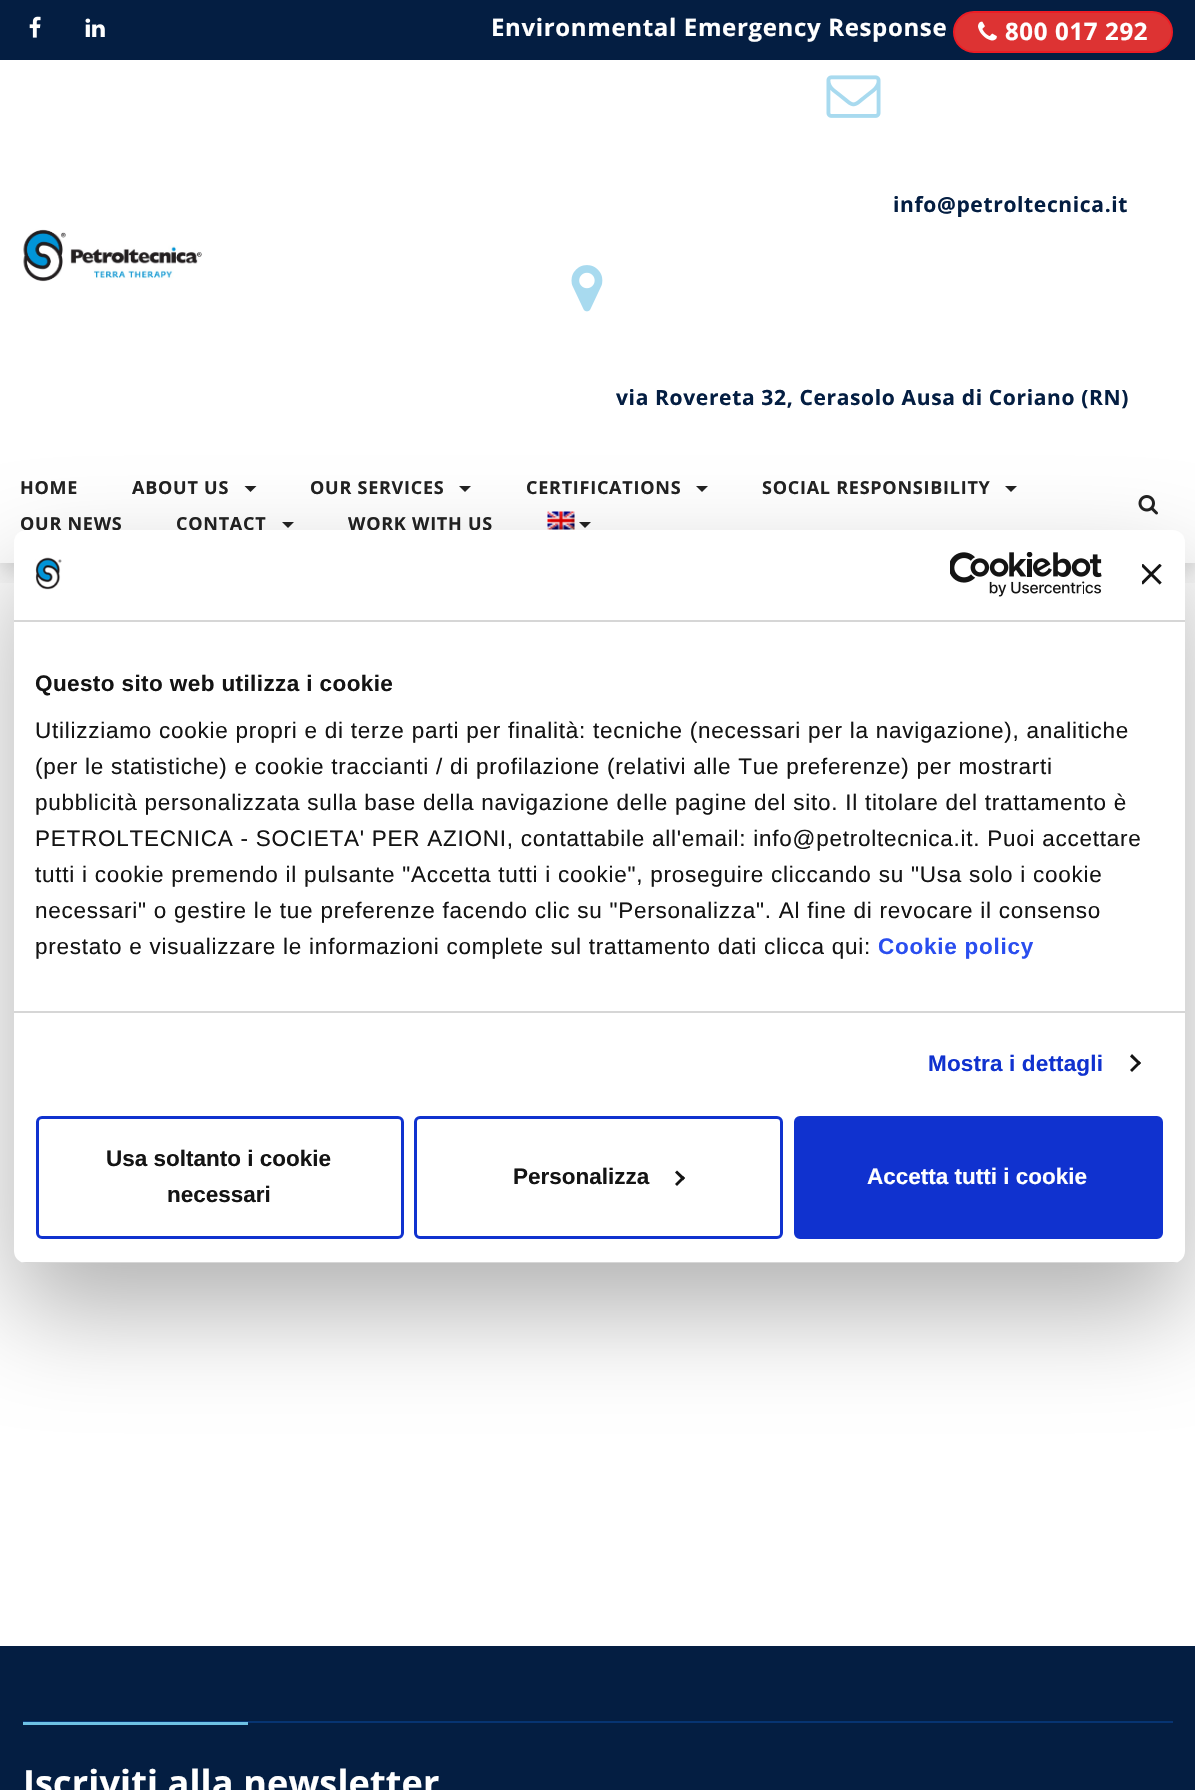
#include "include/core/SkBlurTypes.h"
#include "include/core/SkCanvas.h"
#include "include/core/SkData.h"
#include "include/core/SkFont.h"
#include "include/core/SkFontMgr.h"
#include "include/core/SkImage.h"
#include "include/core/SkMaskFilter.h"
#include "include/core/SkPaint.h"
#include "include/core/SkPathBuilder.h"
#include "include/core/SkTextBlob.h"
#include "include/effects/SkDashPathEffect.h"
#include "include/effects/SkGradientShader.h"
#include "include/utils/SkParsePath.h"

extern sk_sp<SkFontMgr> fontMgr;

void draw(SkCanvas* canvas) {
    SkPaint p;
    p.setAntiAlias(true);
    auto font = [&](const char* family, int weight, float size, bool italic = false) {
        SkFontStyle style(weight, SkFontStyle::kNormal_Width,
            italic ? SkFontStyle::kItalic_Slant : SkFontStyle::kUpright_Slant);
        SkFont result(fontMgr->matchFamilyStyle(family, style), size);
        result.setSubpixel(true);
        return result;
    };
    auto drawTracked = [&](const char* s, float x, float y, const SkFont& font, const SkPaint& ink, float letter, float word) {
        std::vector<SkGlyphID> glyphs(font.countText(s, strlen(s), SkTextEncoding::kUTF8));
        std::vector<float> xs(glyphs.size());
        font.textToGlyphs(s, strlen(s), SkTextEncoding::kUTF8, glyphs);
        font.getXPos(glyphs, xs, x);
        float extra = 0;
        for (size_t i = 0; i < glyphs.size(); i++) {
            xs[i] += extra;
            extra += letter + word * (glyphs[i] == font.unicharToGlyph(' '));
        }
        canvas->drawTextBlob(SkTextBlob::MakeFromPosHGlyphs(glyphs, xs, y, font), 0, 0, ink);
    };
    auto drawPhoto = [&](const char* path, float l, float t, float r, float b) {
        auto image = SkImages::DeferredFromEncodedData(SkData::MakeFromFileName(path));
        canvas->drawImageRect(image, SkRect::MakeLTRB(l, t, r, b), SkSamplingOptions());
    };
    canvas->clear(0xFFFFFFFF);
    canvas->save();
    canvas->clipRect(SkRect::MakeLTRB(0, 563, 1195, 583));
    p.setColor(0x33000000);
    p.setMaskFilter(SkMaskFilter::MakeBlur(kNormal_SkBlurStyle, 11));
    canvas->drawRect(SkRect::MakeLTRB(0, 8, 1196, 570), p);
    p.setMaskFilter(nullptr);
    canvas->restore();
    p.setColor(0xFF041E42);
    canvas->drawRect(SkRect::MakeLTRB(0, 0, 1195, 60), p);
    drawPhoto("media/1.png", 29, 16, 41, 38);
    drawPhoto("media/2.png", 85, 18, 105, 37);
    auto font1 = font("Open Sans", 700, 24);
    p.setColor(0xFFFFFFFF);
    drawTracked("Environmental Emergency Response", 491, 36, font1, p, 0.65f, 0);
    p.setColor(0xFFDD3333);
    canvas->drawRoundRect(SkRect::MakeLTRB(954, 12, 1172, 52), 20, 20, p);
    p.setStyle(SkPaint::kStroke_Style);
    p.setStrokeWidth(2);
    p.setColor(0xFFED1C24);
    canvas->drawRoundRect(SkRect::MakeLTRB(954, 12, 1172, 52), 20, 20, p);
    drawPhoto("media/3.png", 978, 21, 997, 41);
    p.setStyle(SkPaint::kFill_Style);
    p.setColor(0xFFFFFFFF);
    drawTracked("800 017 292", 1005, 40, font1, p, 0.65f, 0);
    drawPhoto("media/4.png", 23, 229, 202, 282);
    drawPhoto("media/5.png", 826, 75, 881, 118);
    auto font2 = font("Open Sans", 700, 21);
    p.setColor(0xFF041E42);
    drawTracked("info@petroltecnica.it", 893, 212, font2, p, 0.65f, 0);
    drawPhoto("media/6.png", 571, 265, 603, 312);
    drawTracked("via Rovereta 32, Cerasolo Ausa di Coriano (RN)", 616, 405, font2, p, 0.65f, 0);
    p.setColor(0xFFFFFFFF);
    canvas->drawRect(SkRect::MakeLTRB(0, 562, 1195, 563), p);
    auto font3 = font("Open Sans", 700, 18);
    p.setColor(0xFF222222);
    drawTracked("HOME", 20, 494, font3, p, 0.75f, 0);
    drawTracked("ABOUT US", 132, 494, font3, p, 0.75f, 0);
    canvas->drawPath(SkPathBuilder().moveTo(244.5f, 486).lineTo(256.5f, 486).lineTo(250.5f, 492).close().detach(), p);
    drawTracked("OUR SERVICES", 310, 494, font3, p, 0.75f, 0);
    canvas->drawPath(SkPathBuilder().moveTo(459, 486).lineTo(471, 486).lineTo(465, 492).close().detach(), p);
    drawTracked("CERTIFICATIONS", 526, 494, font3, p, 0.75f, 0);
    canvas->drawPath(SkPathBuilder().moveTo(696, 486).lineTo(708, 486).lineTo(702, 492).close().detach(), p);
    drawTracked("SOCIAL RESPONSIBILITY", 762, 494, font3, p, 0.75f, 0);
    canvas->drawPath(SkPathBuilder().moveTo(1005, 486).lineTo(1017, 486).lineTo(1011, 492).close().detach(), p);
    drawTracked("OUR NEWS", 20, 530, font3, p, 0.75f, 0);
    drawTracked("CONTACT", 176, 530, font3, p, 0.75f, 0);
    canvas->drawPath(SkPathBuilder().moveTo(282, 522).lineTo(294, 522).lineTo(288, 528).close().detach(), p);
    drawTracked("WORK WITH US", 348, 530, font3, p, 0.75f, 0);
    drawPhoto("media/7.png", 547, 511, 575, 530);
    canvas->drawPath(SkPathBuilder().moveTo(579, 522).lineTo(591, 522).lineTo(585, 528).close().detach(), p);
    drawPhoto("media/8.png", 1138, 495, 1158, 515);
    {
        const struct { float l, t, r, b; SkColor color; } items[] = {
            {0, 1646, 1195, 1790, 0xFF041E42},
            {23, 1721, 1173, 1723, 0xFF073472},
            {23, 1722, 248, 1725, 0xFF6EC1E4},
        };
        for (auto [l, t, r, b, color] : items) {
            p.setColor(color);
            canvas->drawRect(SkRect::MakeLTRB(l, t, r, b), p);
        }
    }
    auto font4 = font("Open Sans", 700, 36);
    p.setColor(0xFFFFFFFF);
    drawTracked("Iscriviti alla newsletter", 23, 1796, font4, p, 0.15f, 0);
    p.setColor(0x4D000000);
    p.setMaskFilter(SkMaskFilter::MakeBlur(kNormal_SkBlurStyle, 51));
    canvas->drawRoundRect(SkRect::MakeLTRB(14, 578, 1185, 1311), 12, 12, p);
    p.setMaskFilter(nullptr);
    p.setColor(0xFFFFFFFF);
    canvas->drawRoundRect(SkRect::MakeLTRB(14, 530, 1185, 1263), 12, 12, p);
    p.setColor(0xFFD6D6D6);
    canvas->drawRect(SkRect::MakeLTRB(14, 620, 1185, 622), p);
    drawPhoto("media/9.png", 35, 557, 62, 590);
    drawPhoto("media/10.png", 950, 552, 1102, 597);
    drawPhoto("media/11.png", 1142, 564, 1162, 585);
    canvas->drawRect(SkRect::MakeLTRB(14, 1011, 1185, 1013), p);
    auto font5 = font("Liberation Sans", 700, 22.5f);
    p.setColor(0xFF141414);
    drawTracked("Questo sito web utilizza i cookie", 35, 691, font5, p, 0.4f, 0);
    auto font6 = font("Liberation Sans", 400, 22.5f);
    {
        const struct { const char* s; float x, y; } items[] = {
            {"Utilizziamo cookie propri e di terze parti per finalità: tecniche (necessari per la navigazione), analitiche", 35, 738},
            {"(per le statistiche) e cookie traccianti / di profilazione (relativi alle Tue preferenze) per mostrarti", 35, 774},
            {"pubblicità personalizzata sulla base della navigazione delle pagine del sito. Il titolare del trattamento è", 35, 810},
            {"PETROLTECNICA - SOCIETA' PER AZIONI, contattabile all'email: info@petroltecnica.it. Puoi accettare", 35, 846},
            {"tutti i cookie premendo il pulsante \"Accetta tutti i cookie\", proseguire cliccando su \"Usa solo i cookie", 35, 882},
            {"necessari\" o gestire le tue preferenze facendo clic su \"Personalizza\". Al fine di revocare il consenso", 35, 918},
            {"prestato e visualizzare le informazioni complete sul trattamento dati clicca qui:", 35, 954},
        };
        for (auto [s, x, y] : items) {
            drawTracked(s, x, y, font6, p, 0.75f, 0);
        }
    }
    p.setColor(0xFF2A4EEF);
    drawTracked("Cookie policy", 878, 954, font5, p, 0.75f, 0);
    p.setColor(0xFF1032CF);
    drawTracked("Mostra i dettagli", 928, 1071, font5, p, 0.15f, 0);
    p.setColor(0xFF141414);
    canvas->drawPath(SkPathBuilder().moveTo(1132, 1054).lineTo(1141, 1063).lineTo(1139, 1065).lineTo(1130, 1056.5f).close().detach(), p);
    canvas->drawPath(SkPathBuilder().moveTo(1139, 1061).lineTo(1141, 1063).lineTo(1132, 1072).lineTo(1130, 1070).close().detach(), p);
    canvas->save();
    canvas->clipPath(SkPathBuilder().moveTo(26, 530).lineTo(1173, 530).cubicTo(1179.5f, 530, 1185, 535.5f, 1185, 542).lineTo(1185, 1251).cubicTo(1185, 1257.5f, 1179.5f, 1263, 1173, 1263).lineTo(26, 1263).cubicTo(19.5f, 1263, 14, 1257.5f, 14, 1251).lineTo(14, 542).cubicTo(14, 535.5f, 19.5f, 530, 26, 530).close().detach(), true);
    p.setColor(0xFFD6D6D6);
    canvas->drawRect(SkRect::MakeLTRB(14, 1262, 1185, 1263), p);
    canvas->restore();
    p.setStyle(SkPaint::kStroke_Style);
    p.setStrokeWidth(3);
    p.setColor(0xFF1032CF);
    canvas->drawRoundRect(SkRect::MakeLTRB(37.5f, 1117.5f, 402.5f, 1237.5f), 4.5f, 4.5f, p);
    p.setStyle(SkPaint::kFill_Style);
    p.setColor(0xFF141414);
    canvas->drawString("Usa soltanto i cookie", 106, 1166, font5, p);
    canvas->drawString("necessari", 167, 1202, font5, p);
    p.setStyle(SkPaint::kStroke_Style);
    p.setColor(0xFF1032CF);
    canvas->drawRoundRect(SkRect::MakeLTRB(415.5f, 1117.5f, 781.5f, 1237.5f), 4.5f, 4.5f, p);
    p.setStyle(SkPaint::kFill_Style);
    p.setColor(0xFF141414);
    canvas->drawString("Personalizza", 513, 1184, font5, p);
    canvas->drawPath(SkPathBuilder().moveTo(677, 1170.5f).lineTo(685, 1178).lineTo(683, 1180.5f).lineTo(675, 1172.5f).close().detach(), p);
    canvas->drawPath(SkPathBuilder().moveTo(683, 1176).lineTo(685, 1178).lineTo(677, 1186).lineTo(675, 1184).close().detach(), p);
    p.setColor(0xFF1032CF);
    canvas->drawRoundRect(SkRect::MakeLTRB(795.5f, 1117.5f, 1161.5f, 1237.5f), 4.5f, 4.5f, p);
    p.setStyle(SkPaint::kStroke_Style);
    canvas->drawRoundRect(SkRect::MakeLTRB(795.5f, 1117.5f, 1161.5f, 1237.5f), 4.5f, 4.5f, p);
    p.setStyle(SkPaint::kFill_Style);
    p.setColor(0xFFFFFFFF);
    canvas->drawString("Accetta tutti i cookie", 867, 1184, font5, p);
}
